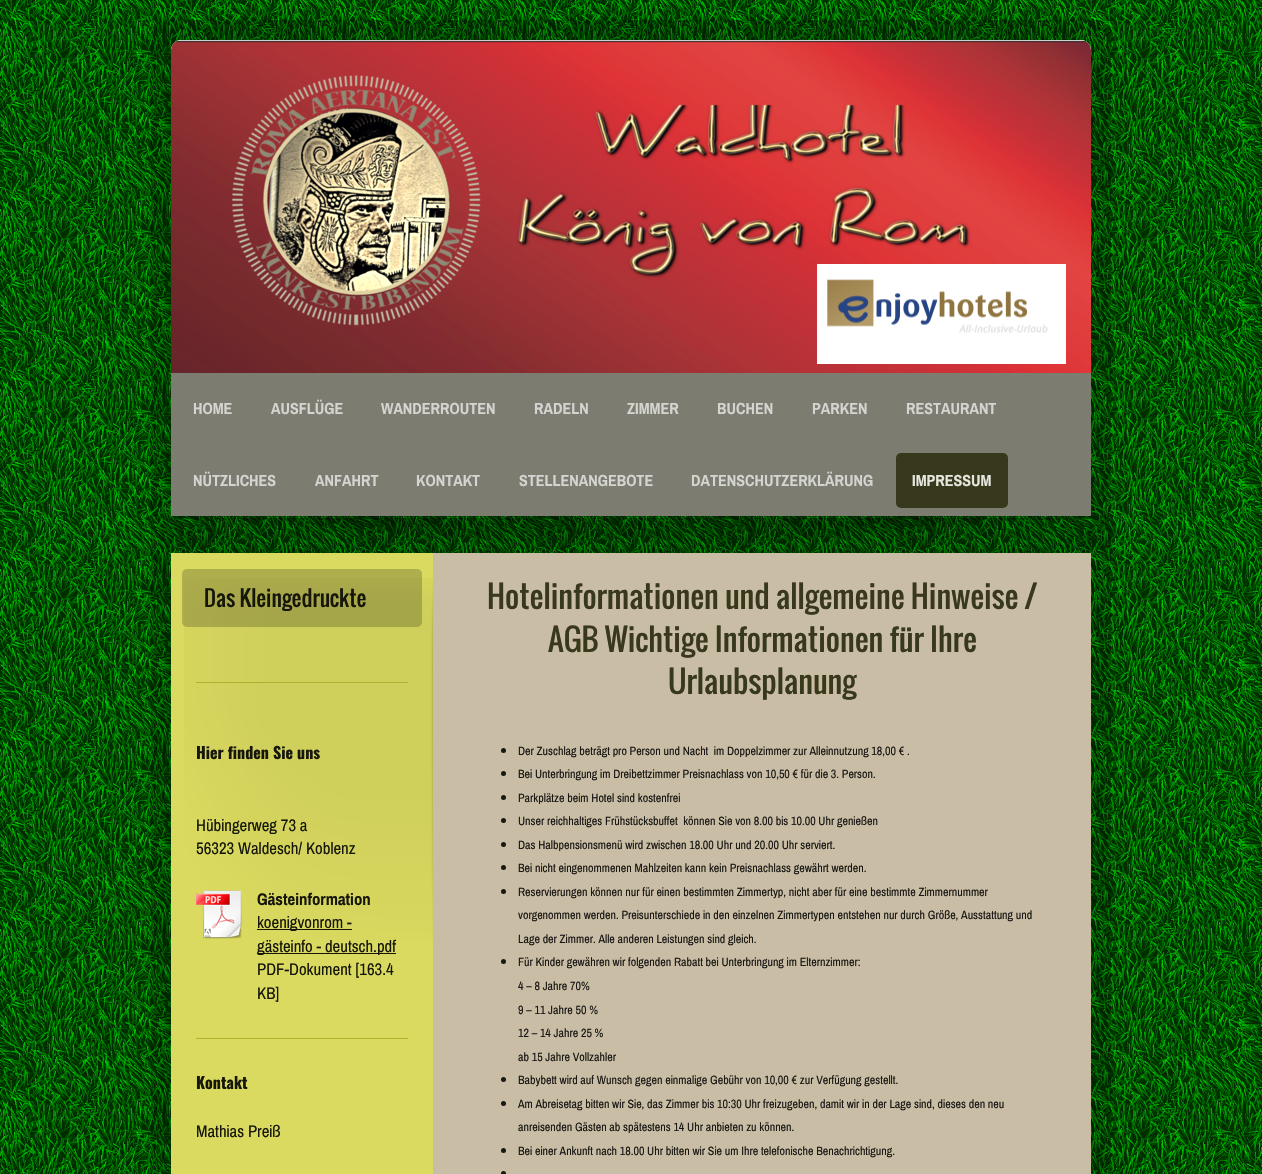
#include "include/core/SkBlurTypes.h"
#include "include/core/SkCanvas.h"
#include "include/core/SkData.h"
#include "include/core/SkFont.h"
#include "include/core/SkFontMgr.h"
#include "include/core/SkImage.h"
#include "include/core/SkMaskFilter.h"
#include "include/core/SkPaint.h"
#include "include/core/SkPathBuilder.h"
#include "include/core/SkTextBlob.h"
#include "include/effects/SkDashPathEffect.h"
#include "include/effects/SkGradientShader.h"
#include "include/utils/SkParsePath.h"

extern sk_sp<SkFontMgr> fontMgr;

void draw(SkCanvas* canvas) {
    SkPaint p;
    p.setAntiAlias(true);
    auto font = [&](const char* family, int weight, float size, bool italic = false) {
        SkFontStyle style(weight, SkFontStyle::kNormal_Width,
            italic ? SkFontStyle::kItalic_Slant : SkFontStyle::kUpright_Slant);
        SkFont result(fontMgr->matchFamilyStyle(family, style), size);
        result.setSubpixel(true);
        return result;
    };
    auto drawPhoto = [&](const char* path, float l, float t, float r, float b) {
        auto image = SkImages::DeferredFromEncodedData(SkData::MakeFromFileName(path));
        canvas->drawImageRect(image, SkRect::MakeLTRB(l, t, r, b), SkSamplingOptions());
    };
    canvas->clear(0xFFFFFFFF);
    drawPhoto("media/1.png", 0, 0, 1262, 1174);
    p.setColor(0x33000000);
    canvas->drawRoundRect(SkRect::MakeLTRB(151, 20, 1111, 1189), 15, 15, p);
    p.setColor(0xFFEEEEEE);
    canvas->drawPath(SkPathBuilder().moveTo(181, 40).lineTo(1081, 40).cubicTo(1086.5f, 40, 1091, 44.5f, 1091, 50).lineTo(1091, 373).lineTo(171, 373).lineTo(171, 50).cubicTo(171, 44.5f, 175.5f, 40, 181, 40).close().detach(), p);
    drawPhoto("media/2.png", 171, 40, 1091, 373);
    drawPhoto("media/3.png", 817, 264, 1066, 364);
    drawPhoto("media/4.png", 172, 516, 1089, 543);
    p.setColor(0xFF7C7C71);
    canvas->drawRect(SkRect::MakeLTRB(171, 373, 1091, 516), p);
    auto font1 = font("Archivo Narrow", 700, 16);
    p.setColor(0xFFD4D4D0);
    {
        const struct { const char* s; float x, y; } items[] = {
            {"HOME", 193, 414},
            {"AUSFLÜGE", 271, 414},
            {"WANDERROUTEN", 381, 414},
            {"RADELN", 534, 414},
            {"ZIMMER", 627, 414},
            {"BUCHEN", 717, 414},
            {"PARKEN", 812, 414},
            {"RESTAURANT", 906, 414},
            {"NÜTZLICHES", 193, 486},
            {"ANFAHRT", 315, 486},
            {"KONTAKT", 416, 486},
            {"STELLENANGEBOTE", 519, 486},
            {"DATENSCHUTZERKLÄRUNG", 691, 486},
        };
        for (auto [s, x, y] : items) {
            canvas->drawString(s, x, y, font1, p);
        }
    }
    p.setColor(0xFF38381C);
    canvas->drawRoundRect(SkRect::MakeLTRB(896, 453, 1008, 508), 5, 5, p);
    p.setColor(0xFFE6E6DE);
    canvas->drawString("IMPRESSUM", 912, 486, font1, p);
    p.setColor(0xFFC9BEA5);
    canvas->drawRect(SkRect::MakeLTRB(433, 553, 1091, 1174), p);
    p.setColor(0xFFDADA60);
    canvas->drawRect(SkRect::MakeLTRB(171, 553, 433, 1174), p);
    auto font2 = font("Oswald", 400, 30.4f);
    p.setColor(0xFF38381C);
    {
        const struct { const char* s; float x, y; } items[] = {
            {"Hotelinformationen und allgemeine Hinweise /", 487, 609},
            {"AGB Wichtige Informationen für Ihre", 548, 652},
            {"Urlaubsplanung", 668, 694},
        };
        for (auto [s, x, y] : items) {
            canvas->drawString(s, x, y, font2, p);
        }
    }
    p.setColor(0xFF191714);
    canvas->drawCircle(503.5f, 750.5f, 2.5f, p);
    auto font3 = font("Archivo Narrow", 400, 12);
    canvas->drawString("Der Zuschlag beträgt pro Person und Nacht  im Doppelzimmer zur Alleinnutzung 18,00 € .", 518, 755, font3, p);
    canvas->drawCircle(503.5f, 773.5f, 2.5f, p);
    canvas->drawString("Bei Unterbringung im Dreibettzimmer Preisnachlass von 10,50 € für die 3. Person.", 518, 778, font3, p);
    canvas->drawCircle(503.5f, 797.5f, 2.5f, p);
    canvas->drawString("Parkplätze beim Hotel sind kostenfrei", 518, 802, font3, p);
    canvas->drawCircle(503.5f, 820.5f, 2.5f, p);
    canvas->drawString("Unser reichhaltiges Frühstücksbuffet  können Sie von 8.00 bis 10.00 Uhr genießen", 518, 825, font3, p);
    canvas->drawCircle(503.5f, 844.5f, 2.5f, p);
    canvas->drawString("Das Halbpensionsmenü wird zwischen 18.00 Uhr und 20.00 Uhr serviert.", 518, 849, font3, p);
    canvas->drawCircle(503.5f, 867.5f, 2.5f, p);
    canvas->drawString("Bei nicht eingenommenen Mahlzeiten kann kein Preisnachlass gewährt werden.", 518, 872, font3, p);
    canvas->drawCircle(503.5f, 891.5f, 2.5f, p);
    {
        const struct { const char* s; float x, y; } items[] = {
            {"Reservierungen können nur für einen bestimmten Zimmertyp, nicht aber für eine bestimmte Zimmernummer", 518, 896},
            {"vorgenommen werden. Preisunterschiede in den einzelnen Zimmertypen entstehen nur durch Größe, Ausstattung und", 518, 919},
            {"Lage der Zimmer. Alle anderen Leistungen sind gleich.", 518, 943},
        };
        for (auto [s, x, y] : items) {
            canvas->drawString(s, x, y, font3, p);
        }
    }
    canvas->drawCircle(503.5f, 961.5f, 2.5f, p);
    {
        const struct { const char* s; float x, y; } items[] = {
            {"Für Kinder gewähren wir folgenden Rabatt bei Unterbringung im Elternzimmer:", 518, 966},
            {"4 – 8 Jahre 70%", 518, 990},
            {"9 – 11 Jahre 50 %", 518, 1014},
            {"12 – 14 Jahre 25 %", 518, 1037},
            {"ab 15 Jahre Vollzahler", 518, 1061},
        };
        for (auto [s, x, y] : items) {
            canvas->drawString(s, x, y, font3, p);
        }
    }
    canvas->drawCircle(503.5f, 1079.5f, 2.5f, p);
    canvas->drawString("Babybett wird auf Wunsch gegen einmalige Gebühr von 10,00 € zur Verfügung gestellt.", 518, 1084, font3, p);
    canvas->drawCircle(503.5f, 1103.5f, 2.5f, p);
    canvas->drawString("Am Abreisetag bitten wir Sie, das Zimmer bis 10:30 Uhr freizugeben, damit wir in der Lage sind, dieses den neu", 518, 1108, font3, p);
    canvas->drawString("anreisenden Gästen ab spätestens 14 Uhr anbieten zu können.", 518, 1131, font3, p);
    canvas->drawCircle(503.5f, 1150.5f, 2.5f, p);
    canvas->drawString("Bei einer Ankunft nach 18.00 Uhr bitten wir Sie um Ihre telefonische Benachrichtigung.", 518, 1155, font3, p);
    canvas->drawCircle(503.5f, 1173.5f, 2.5f, p);
    drawPhoto("media/5.png", 184, 578, 433, 941);
    p.setColor(0x33000000);
    canvas->drawRoundRect(SkRect::MakeLTRB(182, 569, 422, 627), 5, 5, p);
    auto font4 = font("Oswald", 400, 21.5f);
    p.setColor(0xFF16160A);
    canvas->drawString("Das Kleingedruckte", 204, 607, font4, p);
    p.setColor(0xFFB1B12E);
    canvas->drawRect(SkRect::MakeLTRB(196, 682, 408, 683), p);
    auto font5 = font("Oswald", 700, 16);
    p.setColor(0xFF16160A);
    canvas->drawString("Hier finden Sie uns", 196, 759, font5, p);
    auto font6 = font("Archivo Narrow", 400, 16.75f);
    canvas->drawString("Hübingerweg 73 a", 196, 831, font6, p);
    canvas->drawString("56323 Waldesch/ Koblenz", 196, 854, font6, p);
    drawPhoto("media/6.png", 196, 890, 242, 939);
    auto font7 = font("Archivo Narrow", 700, 16.75f);
    canvas->drawString("Gästeinformation", 257, 905, font7, p);
    canvas->drawRect(SkRect::MakeLTRB(257, 929, 352, 930), p);
    canvas->drawString("koenigvonrom -", 257, 928, font6, p);
    canvas->drawRect(SkRect::MakeLTRB(257, 953, 396, 954), p);
    {
        const struct { const char* s; float x, y; } items[] = {
            {"gästeinfo - deutsch.pdf", 257, 952},
            {"PDF-Dokument [163.4", 257, 975},
            {"KB]", 257, 999},
        };
        for (auto [s, x, y] : items) {
            canvas->drawString(s, x, y, font6, p);
        }
    }
    p.setColor(0xFFB1B12E);
    canvas->drawRect(SkRect::MakeLTRB(196, 1038, 408, 1039), p);
    p.setColor(0xFF16160A);
    canvas->drawString("Kontakt", 196, 1089, font5, p);
    canvas->drawString("Mathias Preiß", 196, 1137, font6, p);
}
